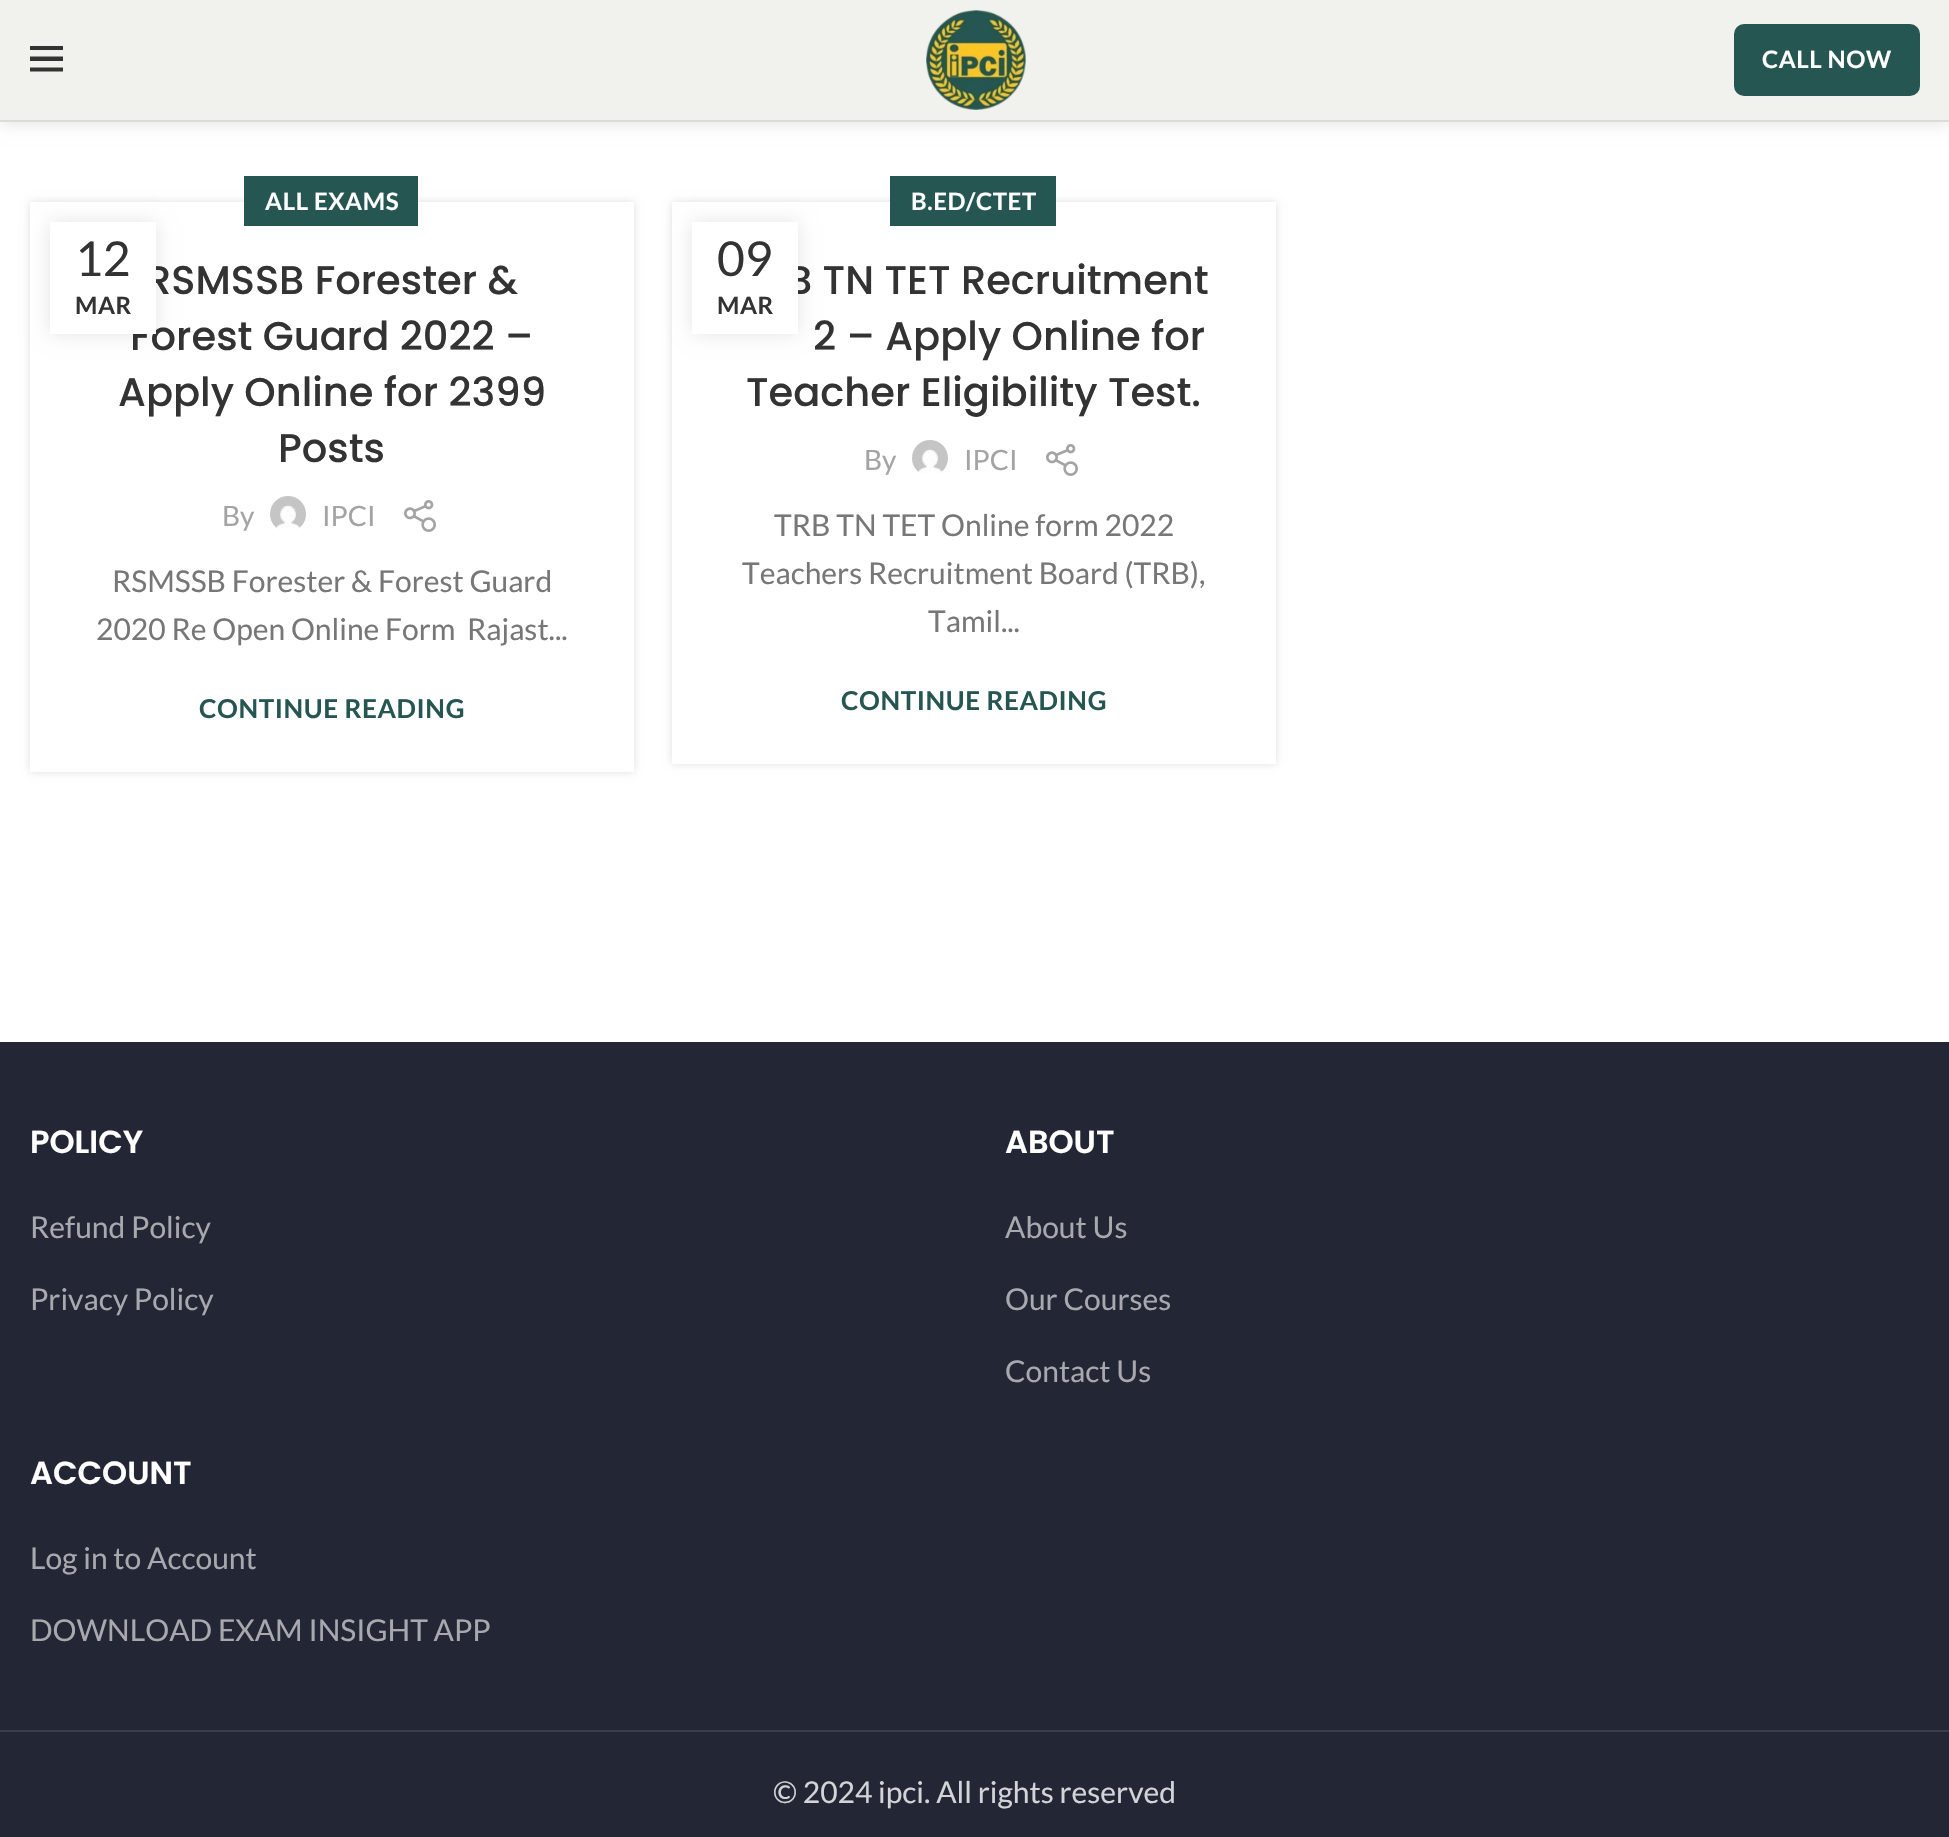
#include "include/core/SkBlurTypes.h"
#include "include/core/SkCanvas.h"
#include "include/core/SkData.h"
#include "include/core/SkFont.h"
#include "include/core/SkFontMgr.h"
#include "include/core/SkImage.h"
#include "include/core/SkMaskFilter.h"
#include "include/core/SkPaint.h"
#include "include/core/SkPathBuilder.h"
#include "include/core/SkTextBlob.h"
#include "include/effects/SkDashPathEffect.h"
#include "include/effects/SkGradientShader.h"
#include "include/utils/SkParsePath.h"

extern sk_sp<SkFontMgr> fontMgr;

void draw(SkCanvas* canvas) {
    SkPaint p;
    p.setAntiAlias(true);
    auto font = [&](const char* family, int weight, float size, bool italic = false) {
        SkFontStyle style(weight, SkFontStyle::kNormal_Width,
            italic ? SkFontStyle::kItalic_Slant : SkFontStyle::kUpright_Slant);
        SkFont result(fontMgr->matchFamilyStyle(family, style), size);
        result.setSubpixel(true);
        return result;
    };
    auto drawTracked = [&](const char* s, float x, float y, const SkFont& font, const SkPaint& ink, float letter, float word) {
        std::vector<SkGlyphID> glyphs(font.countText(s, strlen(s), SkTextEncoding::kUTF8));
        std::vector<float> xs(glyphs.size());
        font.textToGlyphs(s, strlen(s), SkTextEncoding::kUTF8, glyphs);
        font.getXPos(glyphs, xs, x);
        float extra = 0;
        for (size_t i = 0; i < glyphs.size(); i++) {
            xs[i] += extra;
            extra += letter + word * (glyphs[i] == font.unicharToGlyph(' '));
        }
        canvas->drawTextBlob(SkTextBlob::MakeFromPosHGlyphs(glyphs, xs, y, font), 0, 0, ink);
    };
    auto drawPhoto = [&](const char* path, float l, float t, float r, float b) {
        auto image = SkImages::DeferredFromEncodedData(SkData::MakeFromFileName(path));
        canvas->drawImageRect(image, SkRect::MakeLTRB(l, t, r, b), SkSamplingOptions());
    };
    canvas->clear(0xFFFFFFFF);
    p.setColor(0x1A000000);
    p.setMaskFilter(SkMaskFilter::MakeBlur(kNormal_SkBlurStyle, 8));
    canvas->drawRect(SkRect::MakeLTRB(0, 2, 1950, 124), p);
    p.setMaskFilter(nullptr);
    p.setColor(0xFFF1F2ED);
    canvas->drawRect(SkRect::MakeLTRB(0, 0, 1949, 120), p);
    p.setColor(0xFFDBDBD7);
    canvas->drawRect(SkRect::MakeLTRB(0, 120, 1949, 122), p);
    p.setColor(0xFF333333);
    canvas->drawPath(SkPathBuilder().moveTo(30, 46).lineTo(63, 46).lineTo(63, 50).lineTo(30, 50).close().moveTo(30, 56.5f).lineTo(63, 56.5f).lineTo(63, 61).lineTo(30, 61).close().moveTo(30, 67.5f).lineTo(63, 67.5f).lineTo(63, 71.5f).lineTo(30, 71.5f).close().detach(), p);
    drawPhoto("media/1.png", 926, 10, 1026, 110);
    p.setColor(0xFF265651);
    canvas->drawRoundRect(SkRect::MakeLTRB(1734, 24, 1920, 96), 10, 10, p);
    auto font1 = font("Lato", 700, 24);
    p.setColor(0xFFFFFFFF);
    drawTracked("CALL NOW", 1762, 68, font1, p, 0.6f, 0);
    canvas->save();
    canvas->clipPath(SkPathBuilder(SkPathFillType::kEvenOdd).moveTo(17, 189).lineTo(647, 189).lineTo(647, 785).lineTo(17, 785).close().moveTo(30, 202).lineTo(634, 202).lineTo(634, 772).lineTo(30, 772).close().detach(), true);
    p.setColor(0x1F000000);
    p.setMaskFilter(SkMaskFilter::MakeBlur(kNormal_SkBlurStyle, 4));
    canvas->drawRect(SkRect::MakeLTRB(30, 202, 634, 772), p);
    p.setMaskFilter(nullptr);
    canvas->restore();
    p.setColor(0xFF265651);
    canvas->drawRect(SkRect::MakeLTRB(244, 176, 418, 226), p);
    p.setColor(0xFFFFFFFF);
    drawTracked("ALL EXAMS", 265, 210, font1, p, 0.6f, 0);
    auto font2 = font("Poppins", 500, 40);
    p.setColor(0xFF333333);
    {
        const struct { const char* s; float x, y; } items[] = {
            {"RSMSSB Forester &", 146, 294},
            {"Forest Guard 2022 –", 130, 350},
            {"Apply Online for 2399", 118, 406},
            {"Posts", 278, 462},
        };
        for (auto [s, x, y] : items) {
            canvas->drawString(s, x, y, font2, p);
        }
    }
    auto font3 = font("Lato", 400, 28);
    p.setColor(0xFFA4A4A4);
    canvas->drawString("By", 222, 526, font3, p);
    drawPhoto("media/2.png", 270, 496, 306, 529);
    canvas->drawString("IPCI", 322, 526, font3, p);
    drawPhoto("media/3.png", 404, 500, 436, 532);
    auto font4 = font("Lato", 400, 30);
    p.setColor(0xFF777777);
    {
        const struct { const char* s; float x, y; } items[] = {
            {"RSMSSB Forester & Forest Guard", 112, 592},
            {"2020 Re Open Online Form", 96, 640},
            {"Rajast...", 467, 640},
        };
        for (auto [s, x, y] : items) {
            canvas->drawString(s, x, y, font4, p);
        }
    }
    auto font5 = font("Lato", 700, 26);
    p.setColor(0xFF265651);
    drawTracked("CONTINUE READING", 199, 718, font5, p, 0.6f, 0);
    p.setColor(0x1A000000);
    p.setMaskFilter(SkMaskFilter::MakeBlur(kNormal_SkBlurStyle, 9));
    canvas->drawRect(SkRect::MakeLTRB(50, 222, 156, 334), p);
    p.setMaskFilter(nullptr);
    p.setColor(0xFFFFFFFF);
    canvas->drawRect(SkRect::MakeLTRB(50, 222, 156, 334), p);
    auto font6 = font("Lato", 400, 48);
    p.setColor(0xFF333333);
    canvas->drawString("12", 75, 276, font6, p);
    drawTracked("MAR", 75, 314, font1, p, 0.6f, 0);
    canvas->save();
    canvas->clipPath(SkPathBuilder(SkPathFillType::kEvenOdd).moveTo(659, 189).lineTo(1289, 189).lineTo(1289, 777).lineTo(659, 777).close().moveTo(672, 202).lineTo(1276, 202).lineTo(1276, 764).lineTo(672, 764).close().detach(), true);
    p.setColor(0x1F000000);
    p.setMaskFilter(SkMaskFilter::MakeBlur(kNormal_SkBlurStyle, 4));
    canvas->drawRect(SkRect::MakeLTRB(672, 202, 1276, 764), p);
    p.setMaskFilter(nullptr);
    canvas->restore();
    p.setColor(0xFF265651);
    canvas->drawRect(SkRect::MakeLTRB(890, 176, 1056, 226), p);
    p.setColor(0xFFFFFFFF);
    drawTracked("B.ED/CTET", 911, 210, font1, p, 0.6f, 0);
    p.setColor(0xFF333333);
    {
        const struct { const char* s; float x, y; } items[] = {
            {"B TN TET Recruitment", 787, 294},
            {"2 – Apply Online for", 813, 350},
            {"Teacher Eligibility Test.", 746, 406},
        };
        for (auto [s, x, y] : items) {
            canvas->drawString(s, x, y, font2, p);
        }
    }
    p.setColor(0xFFA4A4A4);
    canvas->drawString("By", 864, 470, font3, p);
    drawPhoto("media/2.png", 912, 440, 948, 473);
    canvas->drawString("IPCI", 964, 470, font3, p);
    drawPhoto("media/3.png", 1046, 444, 1078, 476);
    p.setColor(0xFF777777);
    {
        const struct { const char* s; float x, y; } items[] = {
            {"TRB TN TET Online form 2022", 774, 536},
            {"Teachers Recruitment Board (TRB),", 742, 584},
            {"Tamil...", 928, 632},
        };
        for (auto [s, x, y] : items) {
            canvas->drawString(s, x, y, font4, p);
        }
    }
    p.setColor(0xFF265651);
    drawTracked("CONTINUE READING", 841, 710, font5, p, 0.6f, 0);
    p.setColor(0x1A000000);
    p.setMaskFilter(SkMaskFilter::MakeBlur(kNormal_SkBlurStyle, 9));
    canvas->drawRect(SkRect::MakeLTRB(692, 222, 798, 334), p);
    p.setMaskFilter(nullptr);
    p.setColor(0xFFFFFFFF);
    canvas->drawRect(SkRect::MakeLTRB(692, 222, 798, 334), p);
    p.setColor(0xFF333333);
    canvas->drawString("09", 717, 276, font6, p);
    drawTracked("MAR", 717, 314, font1, p, 0.6f, 0);
    p.setColor(0xFF232735);
    canvas->drawRect(SkRect::MakeLTRB(0, 1042, 1949, 1837), p);
    auto font7 = font("Poppins", 600, 32);
    p.setColor(0xFFFFFFFF);
    canvas->drawString("POLICY", 30, 1153, font7, p);
    p.setColor(0xFFA7A9AE);
    canvas->drawString("Refund Policy", 30, 1238, font4, p);
    canvas->drawString("Privacy Policy", 30, 1310, font4, p);
    p.setColor(0xFFFFFFFF);
    canvas->drawString("ABOUT", 1005, 1153, font7, p);
    p.setColor(0xFFA7A9AE);
    {
        const struct { const char* s; float x, y; } items[] = {
            {"About Us", 1005, 1238},
            {"Our Courses", 1005, 1310},
            {"Contact Us", 1005, 1382},
        };
        for (auto [s, x, y] : items) {
            canvas->drawString(s, x, y, font4, p);
        }
    }
    p.setColor(0xFFFFFFFF);
    canvas->drawString("ACCOUNT", 30, 1484, font7, p);
    p.setColor(0xFFA7A9AE);
    canvas->drawString("Log in to Account", 30, 1569, font4, p);
    canvas->drawString("DOWNLOAD EXAM INSIGHT APP", 30, 1641, font4, p);
    p.setColor(0xFF393D49);
    canvas->drawRect(SkRect::MakeLTRB(0, 1730, 1949, 1732), p);
    p.setColor(0xFFD3D4D7);
    canvas->drawString("© 2024 ipci. All rights reserved", 773, 1803, font4, p);
}
